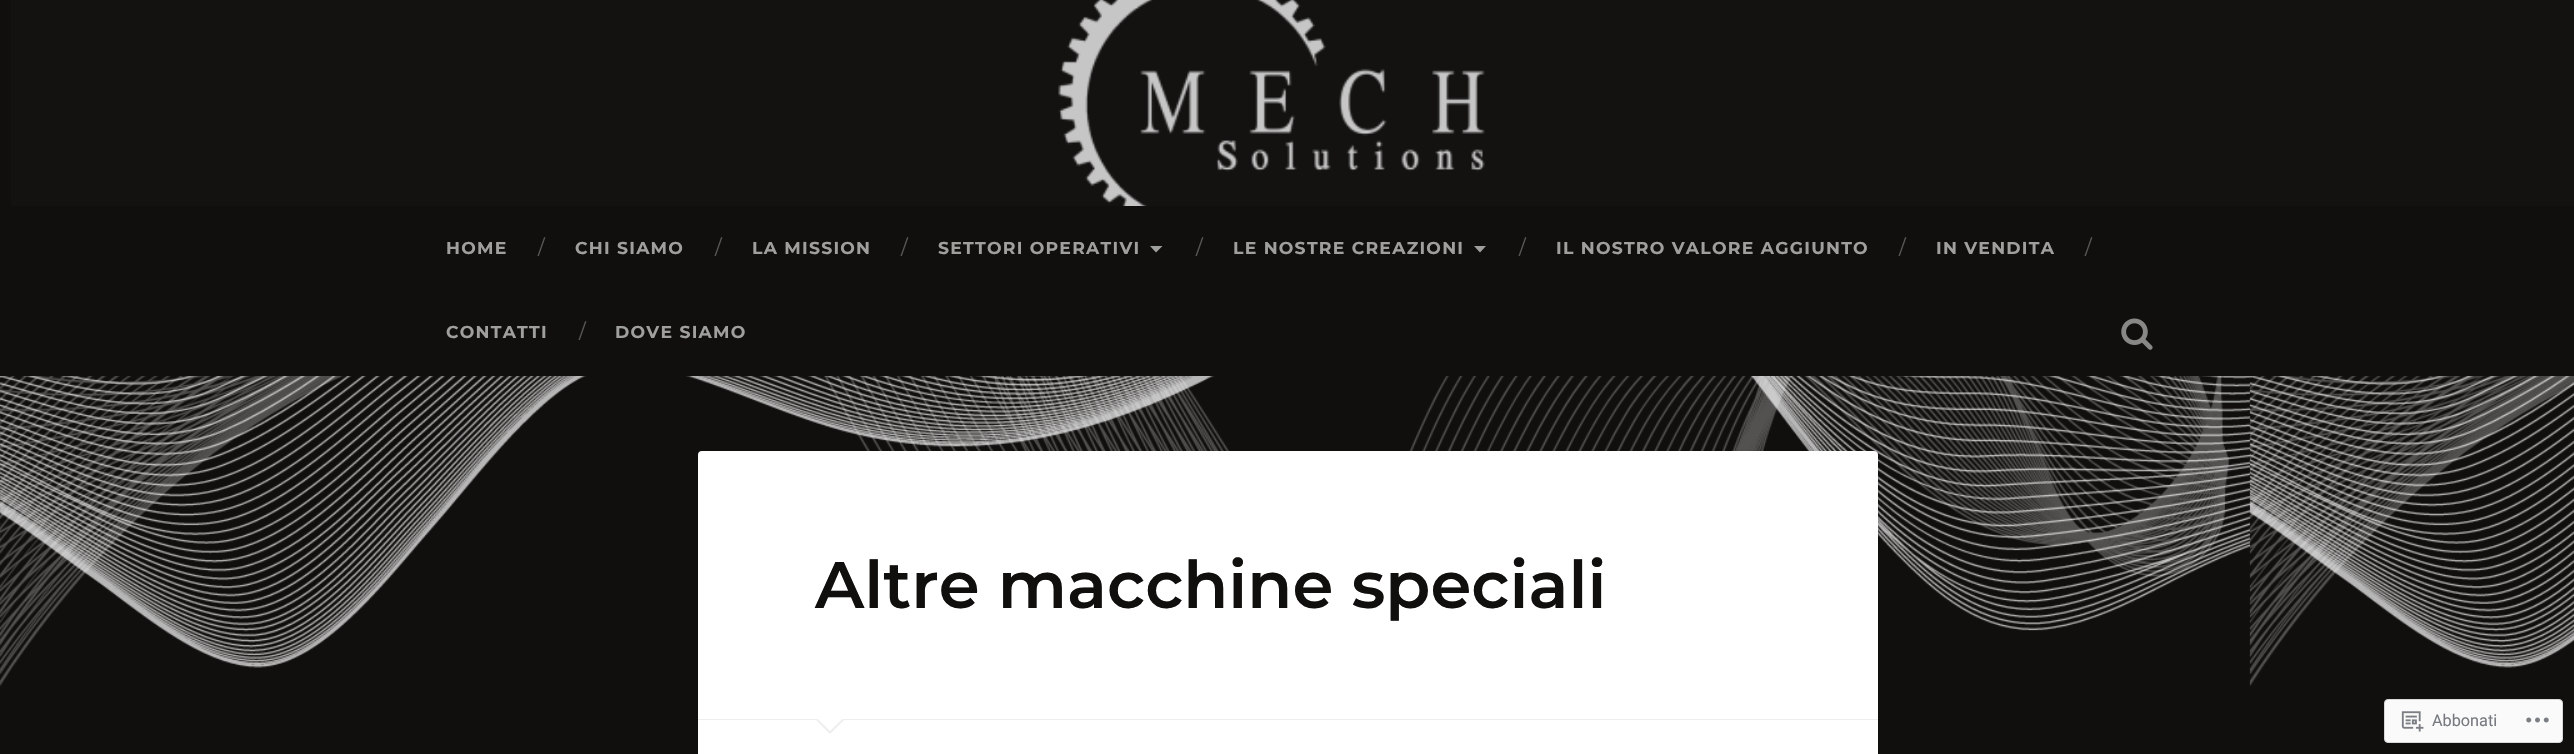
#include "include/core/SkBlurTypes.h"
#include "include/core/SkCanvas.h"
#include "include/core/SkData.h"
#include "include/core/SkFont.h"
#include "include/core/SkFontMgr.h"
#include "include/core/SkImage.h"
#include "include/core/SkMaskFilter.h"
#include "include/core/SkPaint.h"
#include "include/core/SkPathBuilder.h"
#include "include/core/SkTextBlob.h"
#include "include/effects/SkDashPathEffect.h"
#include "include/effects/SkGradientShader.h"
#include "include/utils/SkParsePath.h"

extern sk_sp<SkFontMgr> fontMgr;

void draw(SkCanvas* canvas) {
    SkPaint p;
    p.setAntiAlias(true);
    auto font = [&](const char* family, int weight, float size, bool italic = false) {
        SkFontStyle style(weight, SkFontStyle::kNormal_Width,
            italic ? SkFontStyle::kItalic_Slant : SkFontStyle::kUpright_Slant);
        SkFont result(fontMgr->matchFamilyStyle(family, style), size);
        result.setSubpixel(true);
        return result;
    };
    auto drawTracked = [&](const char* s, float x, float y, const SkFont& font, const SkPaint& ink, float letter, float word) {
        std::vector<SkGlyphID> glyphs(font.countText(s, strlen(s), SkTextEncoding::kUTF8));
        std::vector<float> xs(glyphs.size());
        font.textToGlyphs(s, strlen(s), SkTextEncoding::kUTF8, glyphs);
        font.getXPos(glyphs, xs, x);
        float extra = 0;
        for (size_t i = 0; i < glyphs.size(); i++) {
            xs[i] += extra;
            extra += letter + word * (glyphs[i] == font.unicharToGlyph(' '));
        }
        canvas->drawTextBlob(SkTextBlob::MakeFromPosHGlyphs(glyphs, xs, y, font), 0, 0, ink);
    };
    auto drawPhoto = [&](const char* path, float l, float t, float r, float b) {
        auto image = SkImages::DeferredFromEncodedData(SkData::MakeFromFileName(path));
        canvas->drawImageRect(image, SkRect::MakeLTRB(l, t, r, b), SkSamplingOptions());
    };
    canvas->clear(0xFFFFFFFF);
    drawPhoto("media/1.png", 0, 376, 2574, 754);
    p.setColor(0xFF100F0D);
    canvas->drawRect(SkRect::MakeLTRB(0, 0, 11, 206), p);
    drawPhoto("media/2.png", 11, 0, 2574, 206);
    canvas->drawRect(SkRect::MakeLTRB(0, 206, 2574, 376), p);
    auto font1 = font("Montserrat", 700, 17.25f);
    p.setColor(0xFF9F9F9E);
    drawTracked("HOME", 446, 254, font1, p, 1.25f, 0);
    auto font2 = font("Montserrat", 400, 20);
    p.setColor(0xFF585756);
    canvas->drawString("/", 538, 254, font2, p);
    p.setColor(0xFF9F9F9E);
    drawTracked("CHI SIAMO", 575, 254, font1, p, 1.25f, 0);
    p.setColor(0xFF585756);
    canvas->drawString("/", 715, 254, font2, p);
    p.setColor(0xFF9F9F9E);
    drawTracked("LA MISSION", 752, 254, font1, p, 1.25f, 0);
    p.setColor(0xFF585756);
    canvas->drawString("/", 901, 254, font2, p);
    p.setColor(0xFF9F9F9E);
    drawTracked("SETTORI OPERATIVI", 938, 254, font1, p, 1.25f, 0);
    canvas->drawPath(SkPathBuilder().moveTo(1150, 246).lineTo(1162.5f, 246).lineTo(1156, 252.5f).close().detach(), p);
    p.setColor(0xFF585756);
    canvas->drawString("/", 1196, 254, font2, p);
    p.setColor(0xFF9F9F9E);
    drawTracked("LE NOSTRE CREAZIONI", 1233, 254, font1, p, 1.25f, 0);
    canvas->drawPath(SkPathBuilder().moveTo(1474, 246).lineTo(1486, 246).lineTo(1480, 252.5f).close().detach(), p);
    p.setColor(0xFF585756);
    canvas->drawString("/", 1519, 254, font2, p);
    p.setColor(0xFF9F9F9E);
    drawTracked("IL NOSTRO VALORE AGGIUNTO", 1556, 254, font1, p, 1.25f, 0);
    p.setColor(0xFF585756);
    canvas->drawString("/", 1899, 254, font2, p);
    p.setColor(0xFF9F9F9E);
    drawTracked("IN VENDITA", 1936, 254, font1, p, 1.25f, 0);
    p.setColor(0xFF585756);
    canvas->drawString("/", 2085, 254, font2, p);
    p.setColor(0xFF9F9F9E);
    drawTracked("CONTATTI", 446, 338, font1, p, 1.25f, 0);
    p.setColor(0xFF585756);
    canvas->drawString("/", 579, 338, font2, p);
    p.setColor(0xFF9F9F9E);
    drawTracked("DOVE SIAMO", 615, 338, font1, p, 1.25f, 0);
    drawPhoto("media/3.png", 2121, 318, 2153, 350);
    p.setColor(0x1A000000);
    p.setMaskFilter(SkMaskFilter::MakeBlur(kNormal_SkBlurStyle, 2.5f));
    canvas->drawRoundRect(SkRect::MakeLTRB(698, 453, 1878, 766), 4, 4, p);
    p.setMaskFilter(nullptr);
    p.setColor(0xFFFFFFFF);
    canvas->drawRoundRect(SkRect::MakeLTRB(698, 451, 1878, 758), 4, 4, p);
    p.setColor(0xFFEEEEEE);
    canvas->drawRect(SkRect::MakeLTRB(698, 719, 1878, 720), p);
    auto font3 = font("Montserrat", 600, 65.75f);
    p.setColor(0xFF100F0D);
    canvas->drawString("Altre macchine speciali", 815, 608, font3, p);
    p.setColor(0xFFEEEEEE);
    canvas->drawPath(SkPathBuilder().moveTo(815, 719).lineTo(845, 719).lineTo(830, 734).close().detach(), p);
    p.setColor(0xFFFFFFFF);
    canvas->drawPath(SkPathBuilder().moveTo(816, 717.5f).lineTo(844, 717.5f).lineTo(830, 731).close().detach(), p);
    p.setColor(0xFFFAFAFA);
    canvas->drawRoundRect(SkRect::MakeLTRB(2384.5f, 699.5f, 2562.5f, 742.5f), 3.5f, 3.5f, p);
    p.setStyle(SkPaint::kStroke_Style);
    p.setStrokeWidth(1);
    p.setColor(0xFFD8D8DA);
    canvas->drawRoundRect(SkRect::MakeLTRB(2384.5f, 699.5f, 2562.5f, 742.5f), 3.5f, 3.5f, p);
    drawPhoto("media/4.png", 2401, 711, 2424, 732);
    auto font4 = font("Roboto", 400, 16.25f);
    p.setStyle(SkPaint::kFill_Style);
    p.setColor(0xFF767A80);
    canvas->drawString("Abbonati", 2432, 726, font4, p);
    drawPhoto("media/5.png", 2526, 717, 2549, 723);
}
